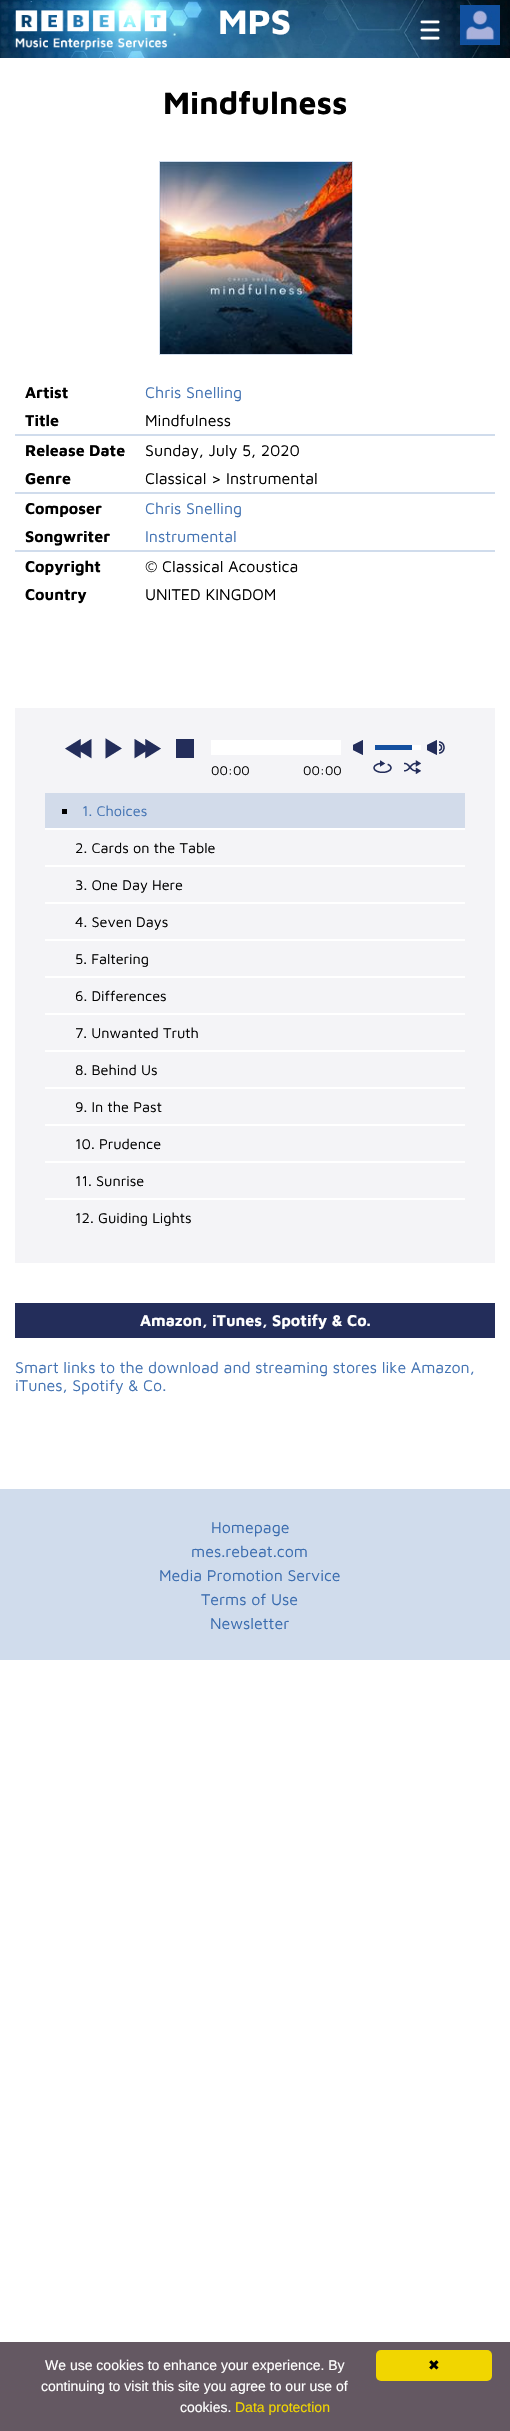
#include "include/core/SkBlurTypes.h"
#include "include/core/SkCanvas.h"
#include "include/core/SkData.h"
#include "include/core/SkFont.h"
#include "include/core/SkFontMgr.h"
#include "include/core/SkImage.h"
#include "include/core/SkMaskFilter.h"
#include "include/core/SkPaint.h"
#include "include/core/SkPathBuilder.h"
#include "include/core/SkTextBlob.h"
#include "include/effects/SkDashPathEffect.h"
#include "include/effects/SkGradientShader.h"
#include "include/utils/SkParsePath.h"

extern sk_sp<SkFontMgr> fontMgr;

void draw(SkCanvas* canvas) {
    SkPaint p;
    p.setAntiAlias(true);
    auto font = [&](const char* family, int weight, float size, bool italic = false) {
        SkFontStyle style(weight, SkFontStyle::kNormal_Width,
            italic ? SkFontStyle::kItalic_Slant : SkFontStyle::kUpright_Slant);
        SkFont result(fontMgr->matchFamilyStyle(family, style), size);
        result.setSubpixel(true);
        return result;
    };
    auto drawPhoto = [&](const char* path, float l, float t, float r, float b) {
        auto image = SkImages::DeferredFromEncodedData(SkData::MakeFromFileName(path));
        canvas->drawImageRect(image, SkRect::MakeLTRB(l, t, r, b), SkSamplingOptions());
    };
    canvas->clear(0xFFFFFFFF);
    drawPhoto("media/1.png", 0, 0, 510, 58);
    drawPhoto("media/2.png", 15, 10, 167, 50);
    auto font1 = font("Maven Pro", 700, 35);
    p.setColor(0xFFFFFFFF);
    canvas->drawString("MPS", 218, 34, font1, p);
    drawPhoto("media/3.png", 420, 20, 440, 40);
    drawPhoto("media/4.png", 460, 5, 500, 45);
    auto font2 = font("Maven Pro", 700, 32);
    p.setColor(0xFF000000);
    canvas->drawString("Mindfulness", 163, 114, font2, p);
    p.setStyle(SkPaint::kStroke_Style);
    p.setStrokeWidth(1);
    p.setColor(0xFFD0DCEC);
    canvas->drawRect(SkRect::MakeLTRB(159.5f, 161.5f, 352.5f, 354.5f), p);
    drawPhoto("media/5.png", 160, 162, 352, 354);
    auto font3 = font("Maven Pro", 700, 16);
    p.setStyle(SkPaint::kFill_Style);
    p.setColor(0xFF000000);
    canvas->drawString("Artist", 25, 398, font3, p);
    auto font4 = font("Maven Pro", 400, 16);
    p.setColor(0xFF4373B3);
    canvas->drawString("Chris Snelling", 145, 398, font4, p);
    p.setColor(0xFF000000);
    canvas->drawString("Title", 25, 426, font3, p);
    canvas->drawString("Mindfulness", 145, 426, font4, p);
    p.setColor(0xFFD0DCEC);
    canvas->drawRect(SkRect::MakeLTRB(15, 434, 495, 436), p);
    p.setColor(0xFF000000);
    canvas->drawString("Release Date", 25, 456, font3, p);
    canvas->drawString("Sunday, July 5, 2020", 145, 456, font4, p);
    canvas->drawString("Genre", 25, 484, font3, p);
    canvas->drawString("Classical > Instrumental", 145, 484, font4, p);
    p.setColor(0xFFD0DCEC);
    canvas->drawRect(SkRect::MakeLTRB(15, 492, 495, 494), p);
    p.setColor(0xFF000000);
    canvas->drawString("Composer", 25, 514, font3, p);
    p.setColor(0xFF4373B3);
    canvas->drawString("Chris Snelling", 145, 514, font4, p);
    p.setColor(0xFF000000);
    canvas->drawString("Songwriter", 25, 542, font3, p);
    p.setColor(0xFF4373B3);
    canvas->drawString("Instrumental", 145, 542, font4, p);
    p.setColor(0xFFD0DCEC);
    canvas->drawRect(SkRect::MakeLTRB(15, 550, 495, 552), p);
    p.setColor(0xFF000000);
    canvas->drawString("Copyright", 25, 572, font3, p);
    canvas->drawString("© Classical Acoustica", 145, 572, font4, p);
    canvas->drawString("Country", 25, 600, font3, p);
    canvas->drawString("UNITED KINGDOM", 145, 600, font4, p);
    p.setColor(0xFFF4F4F7);
    canvas->drawRect(SkRect::MakeLTRB(15, 708, 495, 1263), p);
    drawPhoto("media/6.png", 65, 739, 92, 759);
    drawPhoto("media/7.png", 105, 738, 122, 759);
    drawPhoto("media/8.png", 134, 739, 161, 759);
    p.setColor(0xFF232D5A);
    canvas->drawRect(SkRect::MakeLTRB(176, 739, 194, 758), p);
    drawPhoto("media/9.png", 353, 740, 363, 755);
    drawPhoto("media/10.png", 427, 740, 445, 755);
    {
        const struct { float l, t, r, b; SkColor color; } items[] = {
            {211, 740, 341, 755, 0xFFFFFFFF},
            {412, 745, 421, 750, 0xFFFFFFFF},
            {375, 745, 412, 750, 0xFF1450A0},
        };
        for (auto [l, t, r, b, color] : items) {
            p.setColor(color);
            canvas->drawRect(SkRect::MakeLTRB(l, t, r, b), p);
        }
    }
    auto font5 = font("Maven Pro", 400, 13);
    p.setColor(0xFF000000);
    canvas->drawString("00:00", 211, 775, font5, p);
    canvas->drawString("00:00", 303, 775, font5, p);
    drawPhoto("media/11.png", 373, 760, 392, 773);
    drawPhoto("media/12.png", 404, 760, 421, 774);
    {
        const struct { float l, t, r, b; SkColor color; } items[] = {
            {45, 793, 465, 828, 0xFFD2DBEA},
            {45, 828, 465, 830, 0xFFFFFFFF},
            {62, 809, 67, 814, 0xFF000000},
        };
        for (auto [l, t, r, b, color] : items) {
            p.setColor(color);
            canvas->drawRect(SkRect::MakeLTRB(l, t, r, b), p);
        }
    }
    auto font6 = font("Maven Pro", 400, 14.5f);
    p.setColor(0xFF4373B3);
    canvas->drawString("1. Choices", 82, 816, font6, p);
    p.setColor(0xFFFFFFFF);
    canvas->drawRect(SkRect::MakeLTRB(45, 865, 465, 867), p);
    p.setColor(0xFF000000);
    canvas->drawString("2. Cards on the Table", 75, 853, font6, p);
    p.setColor(0xFFFFFFFF);
    canvas->drawRect(SkRect::MakeLTRB(45, 902, 465, 904), p);
    p.setColor(0xFF000000);
    canvas->drawString("3. One Day Here", 75, 890, font6, p);
    p.setColor(0xFFFFFFFF);
    canvas->drawRect(SkRect::MakeLTRB(45, 939, 465, 941), p);
    p.setColor(0xFF000000);
    canvas->drawString("4. Seven Days", 75, 927, font6, p);
    p.setColor(0xFFFFFFFF);
    canvas->drawRect(SkRect::MakeLTRB(45, 976, 465, 978), p);
    p.setColor(0xFF000000);
    canvas->drawString("5. Faltering", 75, 964, font6, p);
    p.setColor(0xFFFFFFFF);
    canvas->drawRect(SkRect::MakeLTRB(45, 1013, 465, 1015), p);
    p.setColor(0xFF000000);
    canvas->drawString("6. Differences", 75, 1001, font6, p);
    p.setColor(0xFFFFFFFF);
    canvas->drawRect(SkRect::MakeLTRB(45, 1050, 465, 1052), p);
    p.setColor(0xFF000000);
    canvas->drawString("7. Unwanted Truth", 75, 1038, font6, p);
    p.setColor(0xFFFFFFFF);
    canvas->drawRect(SkRect::MakeLTRB(45, 1087, 465, 1089), p);
    p.setColor(0xFF000000);
    canvas->drawString("8. Behind Us", 75, 1075, font6, p);
    p.setColor(0xFFFFFFFF);
    canvas->drawRect(SkRect::MakeLTRB(45, 1124, 465, 1126), p);
    p.setColor(0xFF000000);
    canvas->drawString("9. In the Past", 75, 1112, font6, p);
    p.setColor(0xFFFFFFFF);
    canvas->drawRect(SkRect::MakeLTRB(45, 1161, 465, 1163), p);
    p.setColor(0xFF000000);
    canvas->drawString("10. Prudence", 75, 1149, font6, p);
    p.setColor(0xFFFFFFFF);
    canvas->drawRect(SkRect::MakeLTRB(45, 1198, 465, 1200), p);
    p.setColor(0xFF000000);
    canvas->drawString("11. Sunrise", 75, 1186, font6, p);
    canvas->drawString("12. Guiding Lights", 75, 1223, font6, p);
    p.setColor(0xFF232D5A);
    canvas->drawRect(SkRect::MakeLTRB(15, 1303, 495, 1338), p);
    p.setColor(0xFFFFFFFF);
    canvas->drawString("Amazon, iTunes, Spotify & Co.", 140, 1326, font3, p);
    p.setColor(0xFF4373B3);
    canvas->drawString("Smart links to the download and streaming stores like Amazon,", 15, 1373, font4, p);
    canvas->drawString("iTunes, Spotify & Co.", 15, 1391, font4, p);
    p.setColor(0xFFD0DCEC);
    canvas->drawRect(SkRect::MakeLTRB(0, 1489, 510, 1660), p);
    p.setColor(0xFF3A6CAF);
    {
        const struct { const char* s; float x, y; } items[] = {
            {"Homepage", 211, 1533},
            {"mes.rebeat.com", 191, 1557},
            {"Media Promotion Service", 159, 1581},
            {"Terms of Use", 201, 1605},
            {"Newsletter", 210, 1629},
        };
        for (auto [s, x, y] : items) {
            canvas->drawString(s, x, y, font4, p);
        }
    }
    p.setColor(0xFF645862);
    canvas->drawRect(SkRect::MakeLTRB(0, 2342, 510, 2431), p);
    auto font7 = font("Liberation Sans", 400, 14);
    p.setColor(0xFFFFFFFF);
    {
        const struct { const char* s; float x, y; } items[] = {
            {"We use cookies to enhance your experience. By", 45, 2370},
            {"continuing to visit this site you agree to our use of", 41, 2391},
            {"cookies.", 180, 2412},
        };
        for (auto [s, x, y] : items) {
            canvas->drawString(s, x, y, font7, p);
        }
    }
    p.setColor(0xFFF1D600);
    canvas->drawString("Data protection", 235, 2412, font7, p);
    canvas->drawRoundRect(SkRect::MakeLTRB(376, 2350, 492, 2381), 5, 5, p);
    auto font8 = font("DejaVu Sans", 400, 14);
    p.setColor(0xFF000000);
    canvas->drawString("✖", 428, 2370, font8, p);
}
